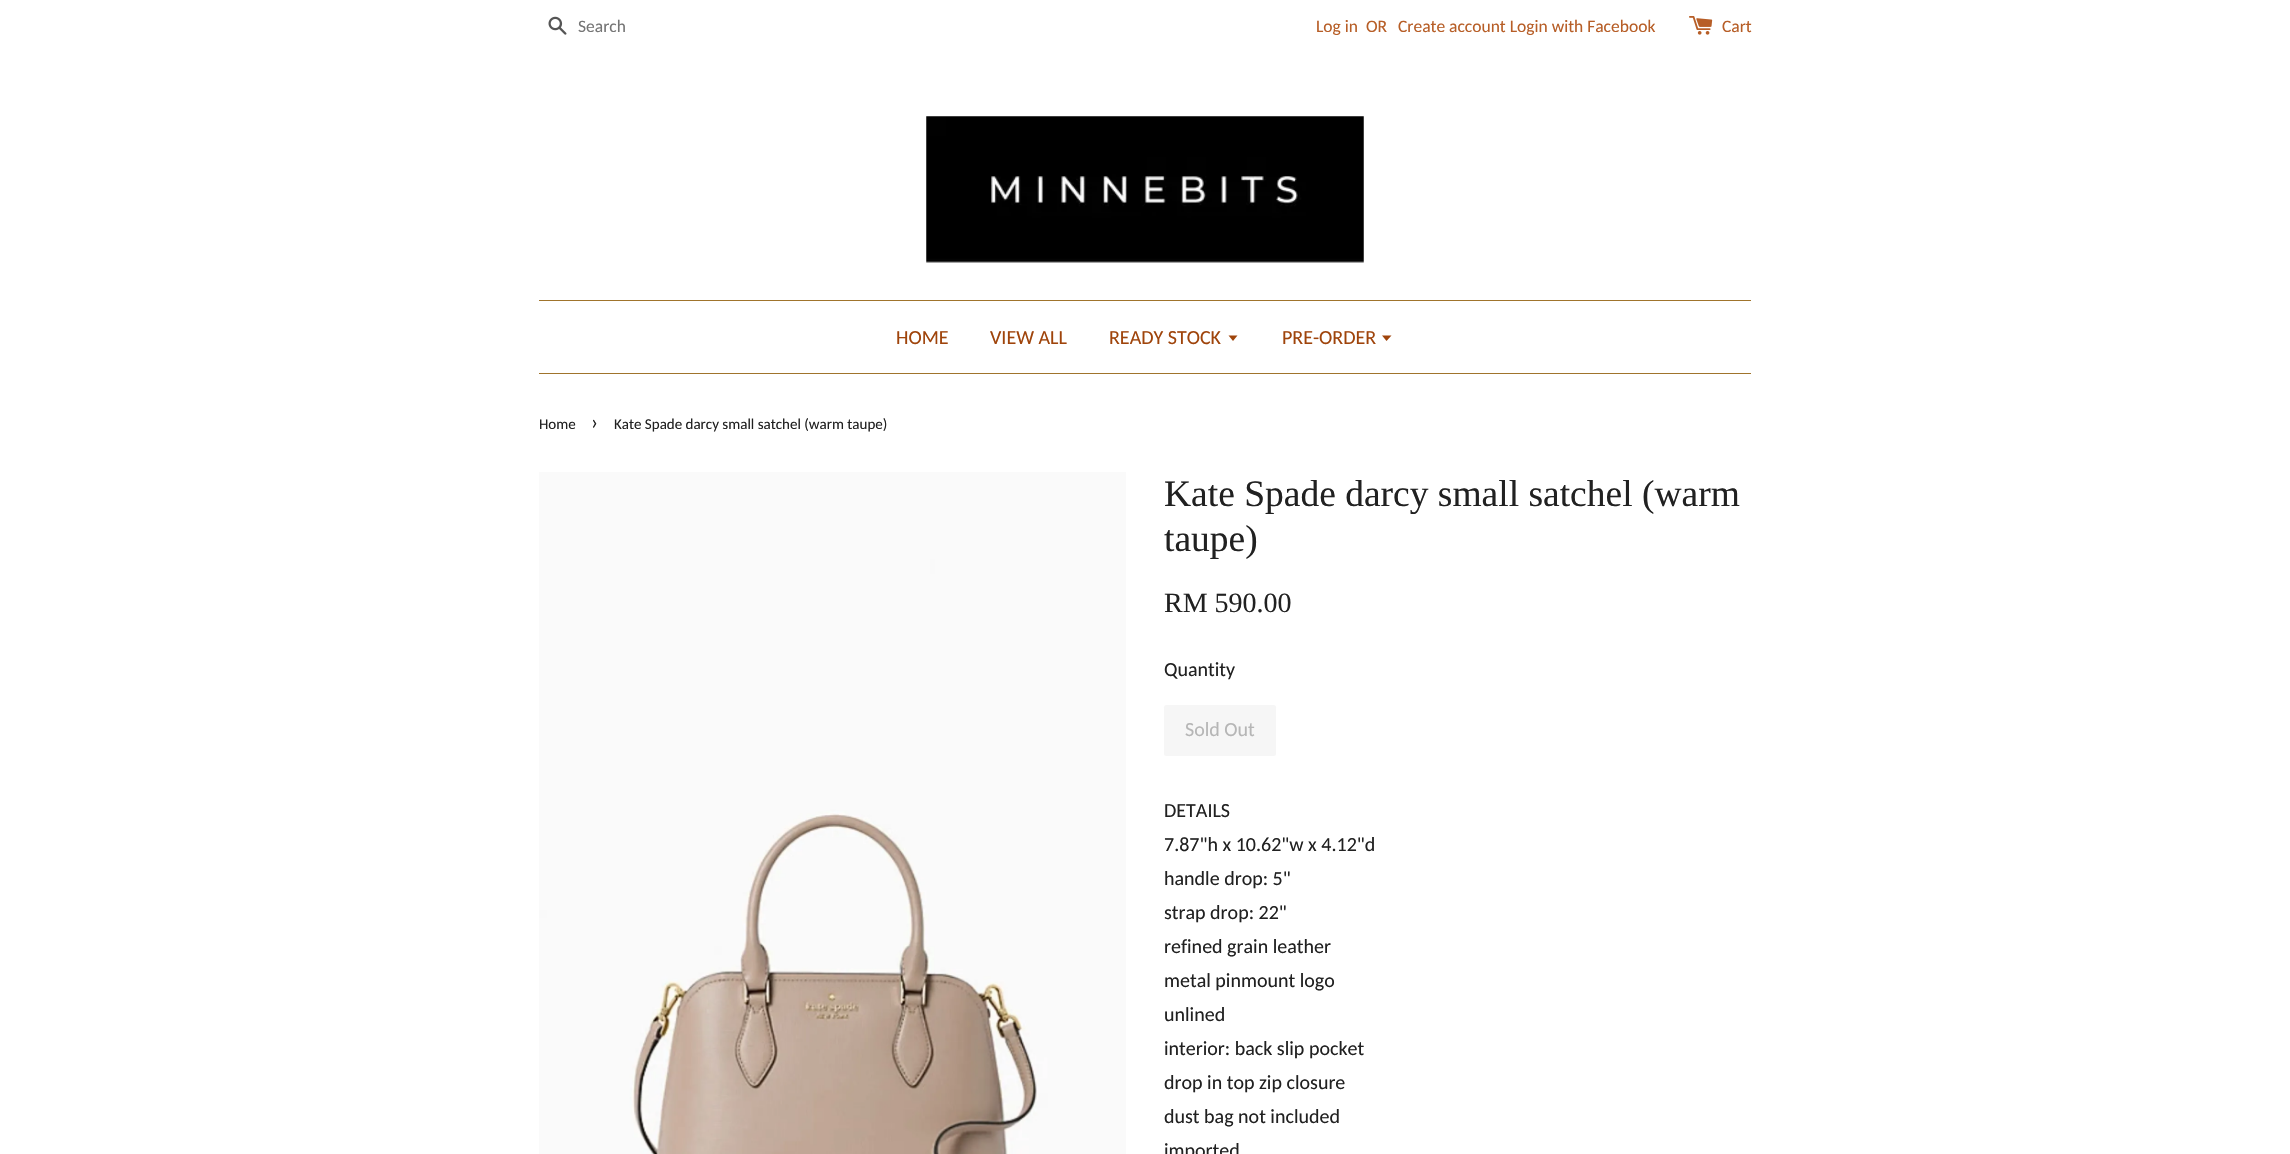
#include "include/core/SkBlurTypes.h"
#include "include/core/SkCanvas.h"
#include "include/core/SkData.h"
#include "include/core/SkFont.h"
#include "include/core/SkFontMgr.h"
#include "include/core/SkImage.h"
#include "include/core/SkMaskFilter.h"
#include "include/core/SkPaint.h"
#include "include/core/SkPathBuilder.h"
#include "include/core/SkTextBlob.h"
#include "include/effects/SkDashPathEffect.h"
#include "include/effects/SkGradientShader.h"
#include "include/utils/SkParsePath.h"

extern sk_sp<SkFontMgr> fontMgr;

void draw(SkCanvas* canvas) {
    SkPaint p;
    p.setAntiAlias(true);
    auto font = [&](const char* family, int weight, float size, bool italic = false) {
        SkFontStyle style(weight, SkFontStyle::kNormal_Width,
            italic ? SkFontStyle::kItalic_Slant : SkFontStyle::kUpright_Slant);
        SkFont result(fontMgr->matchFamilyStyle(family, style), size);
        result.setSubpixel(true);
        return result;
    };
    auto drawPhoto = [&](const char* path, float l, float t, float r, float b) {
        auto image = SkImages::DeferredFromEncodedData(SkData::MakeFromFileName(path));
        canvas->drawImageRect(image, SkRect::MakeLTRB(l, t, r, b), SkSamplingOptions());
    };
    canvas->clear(0xFFFFFFFF);
    drawPhoto("media/1.png", 548, 16, 567, 35);
    auto font1 = font("Carlito", 400, 17.5f);
    p.setColor(0xFF757575);
    canvas->drawString("Search", 578, 32, font1, p);
    p.setColor(0xFFB75E27);
    {
        const struct { const char* s; float x, y; } items[] = {
            {"Log in", 1316, 32},
            {"OR", 1366, 32},
            {"Create account Login with Facebook", 1398, 32},
        };
        for (auto [s, x, y] : items) {
            canvas->drawString(s, x, y, font1, p);
        }
    }
    drawPhoto("media/2.png", 1689, 16, 1713, 35);
    canvas->drawString("Cart", 1722, 32, font1, p);
    drawPhoto("media/3.png", 926, 116, 1364, 263);
    p.setColor(0xFFA0742C);
    canvas->drawRect(SkRect::MakeLTRB(539, 300, 1751, 301), p);
    canvas->drawRect(SkRect::MakeLTRB(539, 373, 1751, 374), p);
    auto font2 = font("Carlito", 400, 20);
    p.setColor(0xFF9F440B);
    {
        const struct { const char* s; float x, y; } items[] = {
            {"HOME", 896, 344},
            {"VIEW ALL", 990, 344},
            {"READY STOCK", 1109, 344},
        };
        for (auto [s, x, y] : items) {
            canvas->drawString(s, x, y, font2, p);
        }
    }
    canvas->drawPath(SkPathBuilder().moveTo(1228.5f, 335.5f).lineTo(1233, 341).lineTo(1237.5f, 335.5f).close().detach(), p);
    canvas->drawString("PRE-ORDER", 1282, 344, font2, p);
    canvas->drawPath(SkPathBuilder().moveTo(1382, 335.5f).lineTo(1386.5f, 341).lineTo(1391.5f, 335.5f).close().detach(), p);
    auto font3 = font("Carlito", 400, 15);
    p.setColor(0xFF212121);
    canvas->drawString("Home", 539, 429, font3, p);
    auto font4 = font("Carlito", 400, 21);
    canvas->drawString("›", 591, 429, font4, p);
    canvas->drawString("Kate Spade darcy small satchel (warm taupe)", 614, 429, font3, p);
    drawPhoto("media/4.png", 539, 472, 1126, 1154);
    auto font5 = font("Liberation Serif", 400, 37.5f);
    canvas->drawString("Kate Spade darcy small satchel (warm", 1164, 506, font5, p);
    canvas->drawString("taupe)", 1164, 551, font5, p);
    auto font6 = font("Liberation Serif", 400, 28);
    canvas->drawString("RM 590.00", 1164, 612, font6, p);
    canvas->drawString("Quantity", 1164, 676, font2, p);
    p.setColor(0xFFF6F6F6);
    canvas->drawRoundRect(SkRect::MakeLTRB(1164, 705, 1276, 756), 2.5f, 2.5f, p);
    p.setColor(0xFFB6B6B6);
    canvas->drawString("Sold Out", 1185, 736, font2, p);
    p.setColor(0xFF212121);
    {
        const struct { const char* s; float x, y; } items[] = {
            {"DETAILS", 1164, 817},
            {"7.87\"h x 10.62\"w x 4.12\"d", 1164, 851},
            {"handle drop: 5\"", 1164, 885},
            {"strap drop: 22\"", 1164, 919},
            {"refined grain leather", 1164, 953},
            {"metal pinmount logo", 1164, 987},
            {"unlined", 1164, 1021},
            {"interior: back slip pocket", 1164, 1055},
            {"drop in top zip closure", 1164, 1089},
            {"dust bag not included", 1164, 1123},
            {"imported", 1164, 1157},
        };
        for (auto [s, x, y] : items) {
            canvas->drawString(s, x, y, font2, p);
        }
    }
}
